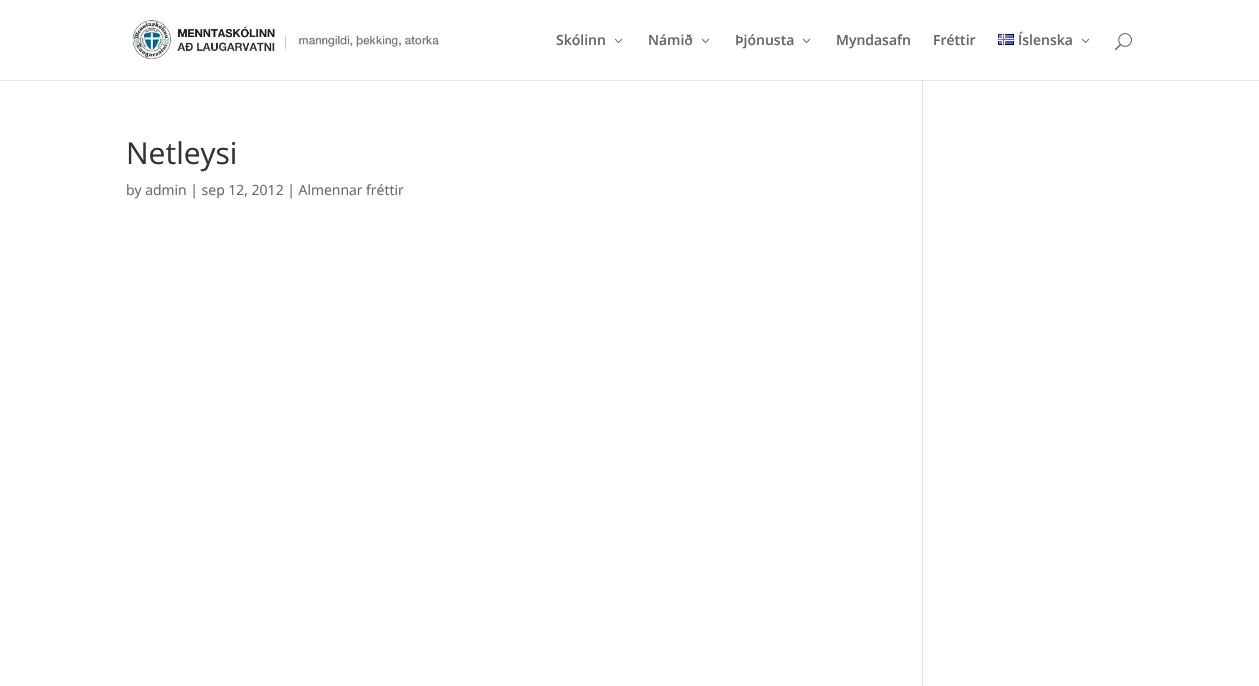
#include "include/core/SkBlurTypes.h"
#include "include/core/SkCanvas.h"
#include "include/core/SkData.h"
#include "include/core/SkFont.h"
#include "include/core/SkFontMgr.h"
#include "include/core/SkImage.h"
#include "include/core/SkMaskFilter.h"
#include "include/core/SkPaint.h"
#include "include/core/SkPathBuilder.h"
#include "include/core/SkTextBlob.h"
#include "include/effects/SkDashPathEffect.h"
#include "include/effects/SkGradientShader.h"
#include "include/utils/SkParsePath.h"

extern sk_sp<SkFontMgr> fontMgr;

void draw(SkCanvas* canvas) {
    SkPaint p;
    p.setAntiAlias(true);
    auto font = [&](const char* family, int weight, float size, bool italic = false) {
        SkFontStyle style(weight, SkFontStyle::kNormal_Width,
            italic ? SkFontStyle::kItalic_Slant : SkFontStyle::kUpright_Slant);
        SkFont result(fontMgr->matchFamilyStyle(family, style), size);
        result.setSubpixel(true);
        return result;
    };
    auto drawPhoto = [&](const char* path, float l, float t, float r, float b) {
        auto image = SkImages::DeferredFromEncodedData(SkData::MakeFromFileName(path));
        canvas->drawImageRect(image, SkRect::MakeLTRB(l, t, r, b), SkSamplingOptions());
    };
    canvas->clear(0xFFFFFFFF);
    p.setColor(0xFFE6E6E6);
    canvas->drawRect(SkRect::MakeLTRB(0, 80, 1259, 81), p);
    drawPhoto("media/1.png", 132, 20, 439, 59);
    auto font1 = font("Open Sans", 600, 14);
    p.setColor(0xFF666666);
    canvas->drawString("Skólinn", 556, 45, font1, p);
    drawPhoto("media/2.png", 614, 38, 623, 43);
    canvas->drawString("Námið", 648, 45, font1, p);
    drawPhoto("media/2.png", 701, 38, 710, 43);
    canvas->drawString("Þjónusta", 735, 45, font1, p);
    drawPhoto("media/2.png", 802, 38, 811, 43);
    canvas->drawString("Myndasafn", 836, 45, font1, p);
    canvas->drawString("Fréttir", 933, 45, font1, p);
    drawPhoto("media/3.png", 998, 34, 1014, 45);
    canvas->drawString("Íslenska", 1018, 45, font1, p);
    drawPhoto("media/2.png", 1081, 38, 1090, 43);
    drawPhoto("media/4.png", 1115, 33, 1132, 51);
    auto font2 = font("Open Sans", 400, 30);
    p.setColor(0xFF333333);
    canvas->drawString("Netleysi", 126, 164, font2, p);
    auto font3 = font("Open Sans", 400, 14);
    p.setColor(0xFF666666);
    canvas->drawString("by admin | sep 12, 2012 | Almennar fréttir", 126, 195, font3, p);
    p.setColor(0xFFE2E2E2);
    canvas->drawRect(SkRect::MakeLTRB(922, 80, 923, 686), p);
    p.setColor(0xFFCBCBCB);
    canvas->drawRect(SkRect::MakeLTRB(922, 80, 923, 81), p);
}
